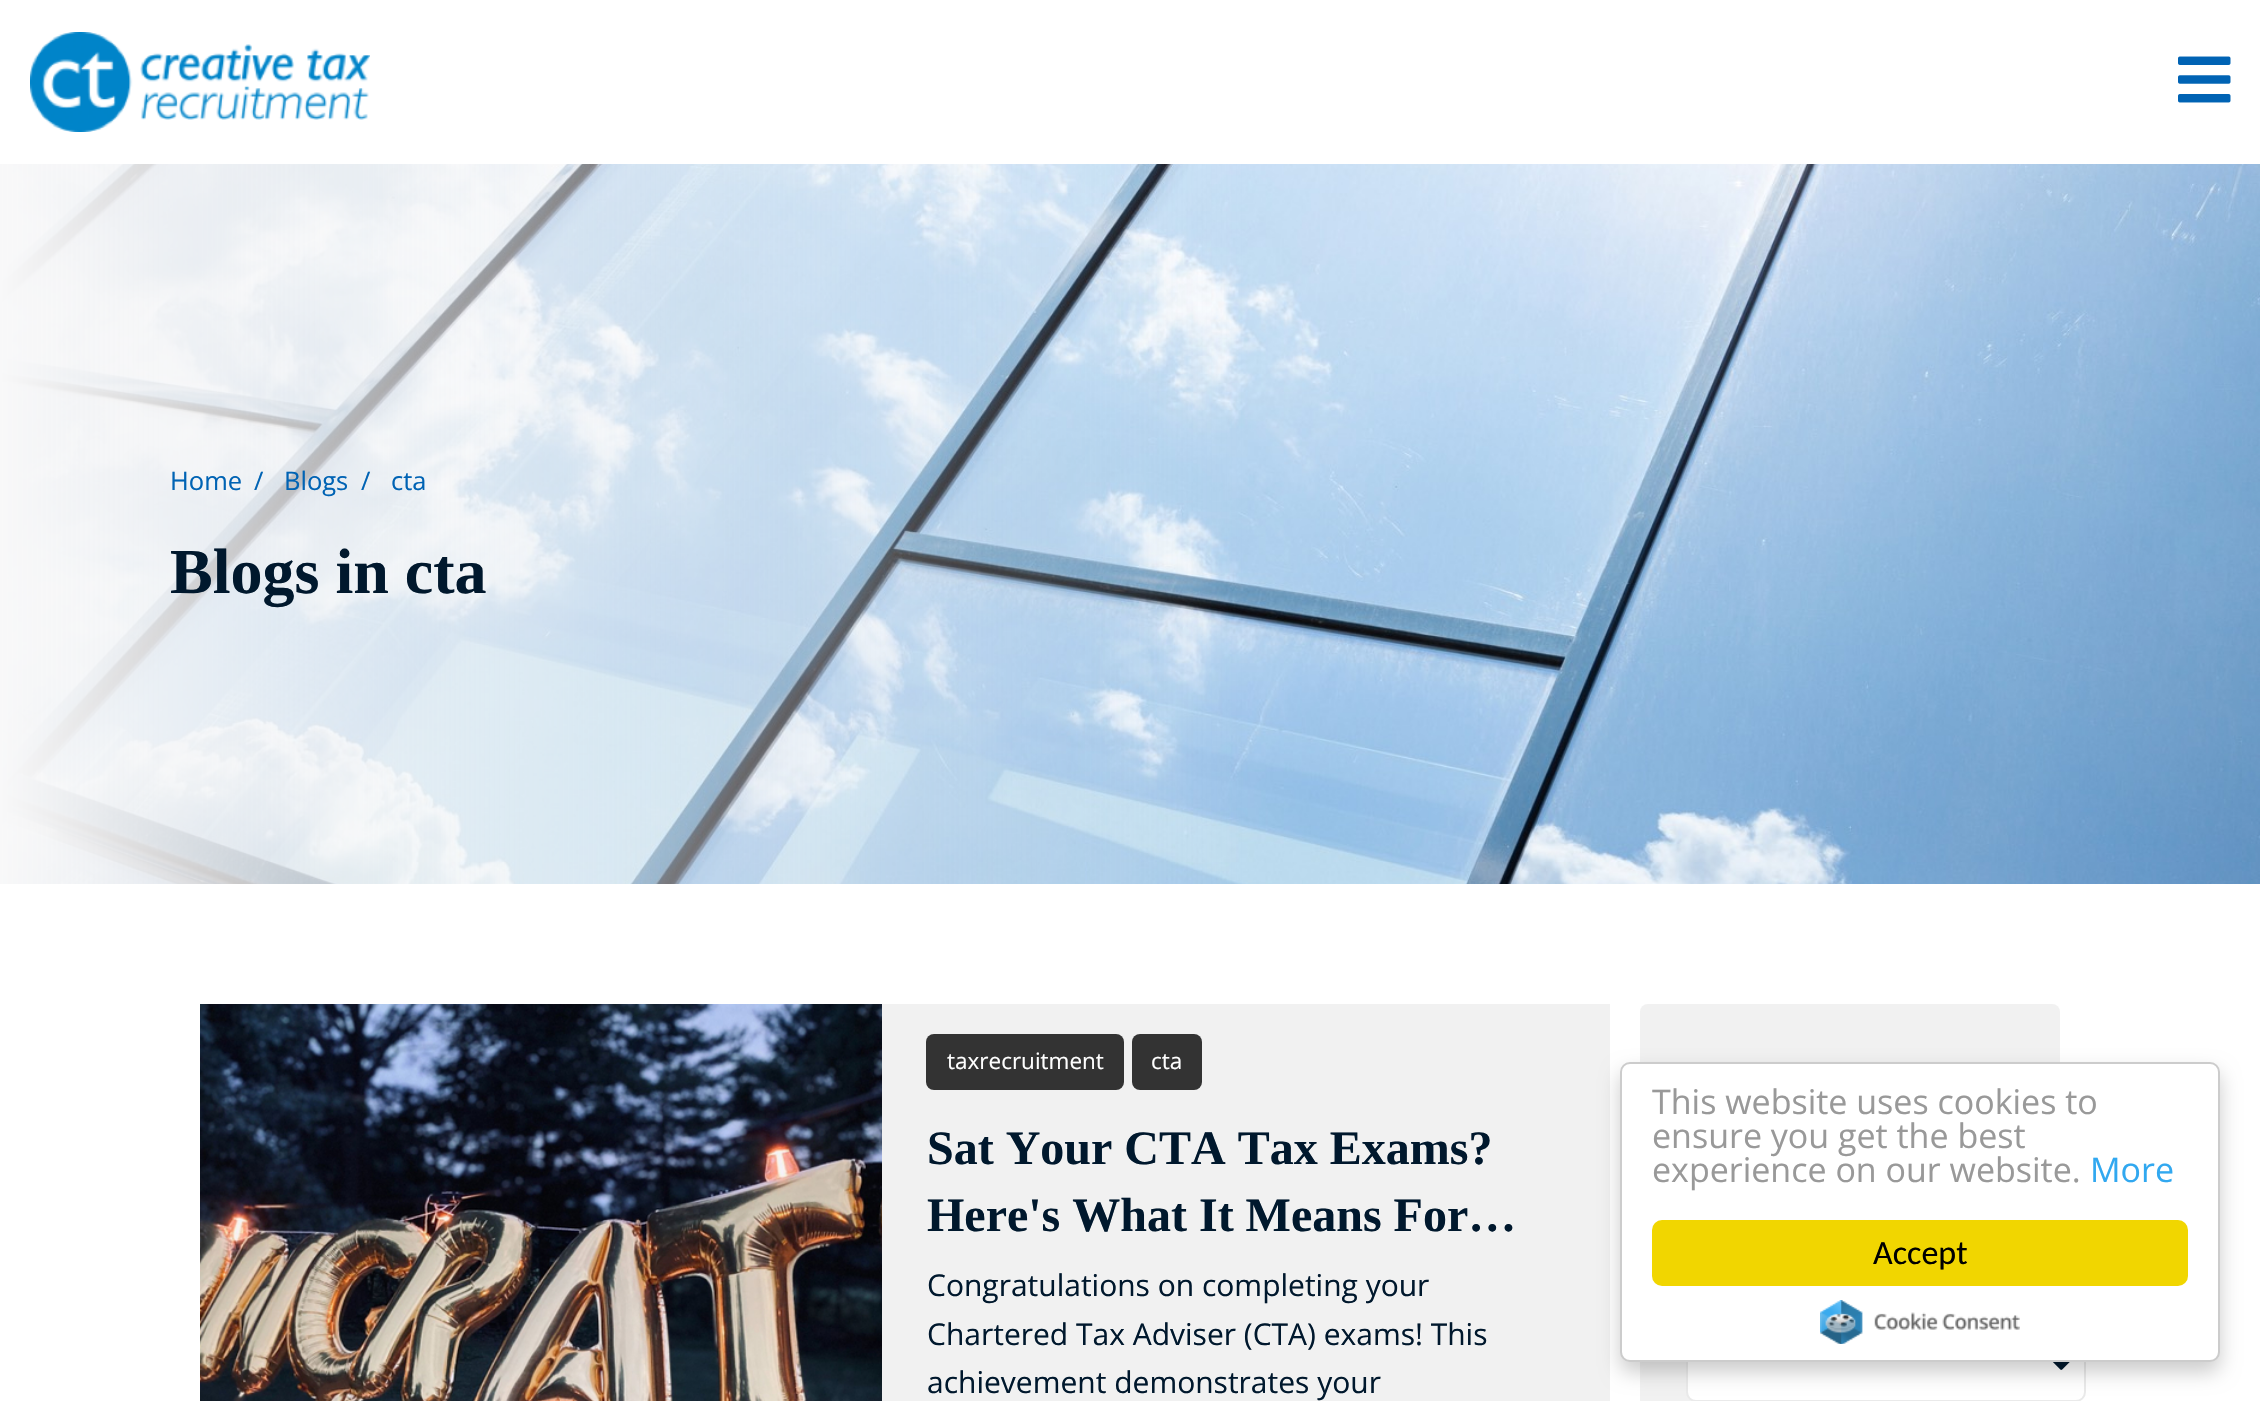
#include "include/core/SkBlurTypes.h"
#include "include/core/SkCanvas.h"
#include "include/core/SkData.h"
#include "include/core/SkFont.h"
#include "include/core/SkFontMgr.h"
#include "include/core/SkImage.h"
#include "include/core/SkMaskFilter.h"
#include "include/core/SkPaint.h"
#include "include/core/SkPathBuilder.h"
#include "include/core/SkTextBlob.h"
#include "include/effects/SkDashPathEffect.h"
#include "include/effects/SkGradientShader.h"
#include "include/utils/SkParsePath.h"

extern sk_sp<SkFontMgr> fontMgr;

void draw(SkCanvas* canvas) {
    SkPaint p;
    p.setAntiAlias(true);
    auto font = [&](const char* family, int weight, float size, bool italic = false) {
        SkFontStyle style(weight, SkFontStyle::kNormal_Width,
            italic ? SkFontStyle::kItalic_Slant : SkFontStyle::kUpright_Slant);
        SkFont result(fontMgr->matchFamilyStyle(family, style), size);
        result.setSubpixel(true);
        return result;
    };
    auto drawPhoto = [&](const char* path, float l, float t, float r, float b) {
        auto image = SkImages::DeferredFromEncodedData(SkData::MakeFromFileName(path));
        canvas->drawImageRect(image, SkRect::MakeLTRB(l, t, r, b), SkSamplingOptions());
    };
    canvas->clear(0xFFFFFFFF);
    drawPhoto("media/1.png", 30, 32, 370, 132);
    drawPhoto("media/2.png", 2178, 56, 2231, 103);
    drawPhoto("media/3.png", 0, 164, 2260, 884);
    auto font1 = font("Open Sans", 400, 25.5f);
    p.setColor(0xFF0063B4);
    {
        const struct { const char* s; float x, y; } items[] = {
            {"Home", 170, 490},
            {"/", 254, 490},
            {"Blogs", 284, 490},
            {"/", 361, 490},
            {"cta", 391, 490},
        };
        for (auto [s, x, y] : items) {
            canvas->drawString(s, x, y, font1, p);
        }
    }
    auto font2 = font("Liberation Serif", 700, 64);
    p.setColor(0xFF00182D);
    canvas->drawString("Blogs in cta", 170, 593, font2, p);
    drawPhoto("media/4.png", 200, 1004, 882, 1401);
    p.setColor(0xFFF1F1F1);
    canvas->drawRect(SkRect::MakeLTRB(882, 1004, 1610, 1401), p);
    p.setColor(0xFF333333);
    canvas->drawRoundRect(SkRect::MakeLTRB(926, 1034, 1124, 1090), 8, 8, p);
    auto font3 = font("Open Sans", 400, 22.5f);
    p.setColor(0xFFFFFFFF);
    canvas->drawString("taxrecruitment", 947, 1069, font3, p);
    p.setColor(0xFF333333);
    canvas->drawRoundRect(SkRect::MakeLTRB(1132, 1034, 1202, 1090), 8, 8, p);
    p.setColor(0xFFFFFFFF);
    canvas->drawString("cta", 1151, 1069, font3, p);
    auto font4 = font("Liberation Serif", 700, 48);
    p.setColor(0xFF00182D);
    canvas->drawString("Sat Your CTA Tax Exams?", 927, 1164, font4, p);
    canvas->drawString("Here's What It Means For…", 927, 1231, font4, p);
    auto font5 = font("Open Sans", 400, 30);
    {
        const struct { const char* s; float x, y; } items[] = {
            {"Congratulations on completing your", 927, 1296},
            {"Chartered Tax Adviser (CTA) exams! This", 927, 1345},
            {"achievement demonstrates your", 927, 1393},
        };
        for (auto [s, x, y] : items) {
            canvas->drawString(s, x, y, font5, p);
        }
    }
    p.setColor(0xFFF1F1F1);
    canvas->drawRoundRect(SkRect::MakeLTRB(1640, 1004, 2060, 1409), 8, 8, p);
    p.setColor(0xFFFFFFFF);
    canvas->drawRoundRect(SkRect::MakeLTRB(1686, 1310, 2086, 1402), 10, 10, p);
    p.setStyle(SkPaint::kStroke_Style);
    p.setStrokeWidth(2);
    p.setColor(0x1A333333);
    canvas->drawRoundRect(SkRect::MakeLTRB(1687, 1311, 2085, 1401), 9, 9, p);
    drawPhoto("media/5.png", 2053, 1362, 2070, 1370);
    p.setStyle(SkPaint::kFill_Style);
    p.setColor(0x33000000);
    p.setMaskFilter(SkMaskFilter::MakeBlur(kNormal_SkBlurStyle, 10));
    canvas->drawRoundRect(SkRect::MakeLTRB(1620, 1072, 2220, 1372), 10, 10, p);
    p.setMaskFilter(nullptr);
    p.setColor(0xFFFFFFFF);
    canvas->drawRoundRect(SkRect::MakeLTRB(1621, 1063, 2219, 1361), 9, 9, p);
    p.setStyle(SkPaint::kStroke_Style);
    p.setColor(0xFFCCCCCC);
    canvas->drawRoundRect(SkRect::MakeLTRB(1621, 1063, 2219, 1361), 9, 9, p);
    auto font6 = font("Open Sans", 400, 34);
    p.setStyle(SkPaint::kFill_Style);
    p.setColor(0xFF999999);
    {
        const struct { const char* s; float x, y; } items[] = {
            {"This website uses cookies to", 1652, 1114},
            {"ensure you get the best", 1652, 1148},
            {"experience on our website.", 1652, 1182},
        };
        for (auto [s, x, y] : items) {
            canvas->drawString(s, x, y, font6, p);
        }
    }
    p.setColor(0xFF31A8F0);
    canvas->drawString("More", 2090, 1182, font6, p);
    p.setColor(0xFFF1D600);
    canvas->drawRoundRect(SkRect::MakeLTRB(1652, 1220, 2188, 1286), 10, 10, p);
    auto font7 = font("Carlito", 400, 34);
    p.setColor(0xFF000000);
    canvas->drawString("Accept", 1873, 1264, font7, p);
    drawPhoto("media/6.png", 1820, 1300, 2020, 1344);
}
